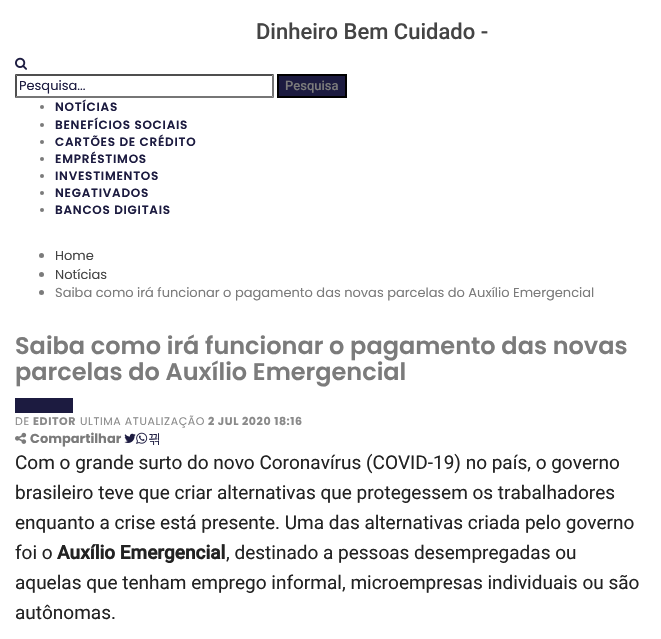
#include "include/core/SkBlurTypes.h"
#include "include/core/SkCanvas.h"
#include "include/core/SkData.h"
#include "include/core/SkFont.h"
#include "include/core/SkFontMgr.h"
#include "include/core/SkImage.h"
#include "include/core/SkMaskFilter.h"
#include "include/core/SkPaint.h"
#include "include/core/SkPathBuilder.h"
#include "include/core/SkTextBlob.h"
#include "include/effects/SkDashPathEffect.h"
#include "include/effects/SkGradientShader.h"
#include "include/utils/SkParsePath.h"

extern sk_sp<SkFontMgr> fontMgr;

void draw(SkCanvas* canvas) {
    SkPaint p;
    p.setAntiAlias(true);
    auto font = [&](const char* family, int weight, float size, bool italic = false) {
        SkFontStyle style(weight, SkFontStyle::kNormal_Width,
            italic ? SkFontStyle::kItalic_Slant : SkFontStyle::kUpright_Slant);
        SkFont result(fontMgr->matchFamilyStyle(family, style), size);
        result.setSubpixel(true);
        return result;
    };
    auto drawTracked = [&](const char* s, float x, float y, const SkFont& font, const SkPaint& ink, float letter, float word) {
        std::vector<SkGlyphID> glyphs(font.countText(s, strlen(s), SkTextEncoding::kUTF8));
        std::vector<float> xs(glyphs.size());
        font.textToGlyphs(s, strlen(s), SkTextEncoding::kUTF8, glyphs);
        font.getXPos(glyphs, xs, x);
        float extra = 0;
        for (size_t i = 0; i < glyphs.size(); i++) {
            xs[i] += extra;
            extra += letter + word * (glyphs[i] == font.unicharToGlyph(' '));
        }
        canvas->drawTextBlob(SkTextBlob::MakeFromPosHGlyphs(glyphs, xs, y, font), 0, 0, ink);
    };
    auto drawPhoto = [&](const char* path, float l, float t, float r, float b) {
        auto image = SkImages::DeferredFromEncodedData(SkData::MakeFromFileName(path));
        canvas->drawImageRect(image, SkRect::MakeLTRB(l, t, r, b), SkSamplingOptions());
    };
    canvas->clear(0xFFFFFFFF);
    auto font1 = font("Roboto", 500, 22);
    p.setColor(0xFF444444);
    canvas->drawString("Dinheiro Bem Cuidado -", 256, 39, font1, p);
    drawPhoto("media/1.png", 15, 57, 27, 70);
    p.setColor(0xFF4F4F4F);
    canvas->drawPath(SkPathBuilder().moveTo(15, 74).lineTo(274, 74).lineTo(272, 76).lineTo(17, 76).close().detach(), p);
    p.setColor(0xFF767676);
    canvas->drawPath(SkPathBuilder().moveTo(274, 74).lineTo(274, 98).lineTo(272, 96).lineTo(272, 76).close().detach(), p);
    canvas->drawPath(SkPathBuilder().moveTo(274, 98).lineTo(15, 98).lineTo(17, 96).lineTo(272, 96).close().detach(), p);
    p.setColor(0xFF4F4F4F);
    canvas->drawPath(SkPathBuilder().moveTo(15, 98).lineTo(15, 74).lineTo(17, 76).lineTo(17, 96).close().detach(), p);
    auto font2 = font("Poppins", 400, 13);
    p.setColor(0xFF1C1B40);
    canvas->drawString("Pesquisa...", 19, 90, font2, p);
    canvas->drawRect(SkRect::MakeLTRB(278, 75, 346, 97), p);
    p.setStyle(SkPaint::kStroke_Style);
    p.setStrokeWidth(2);
    p.setColor(0xFF000000);
    canvas->drawRect(SkRect::MakeLTRB(278, 75, 346, 97), p);
    auto font3 = font("Roboto", 500, 13);
    p.setStyle(SkPaint::kFill_Style);
    p.setColor(0xFF7B7B7B);
    canvas->drawString("Pesquisa", 285, 90, font3, p);
    canvas->drawCircle(42, 107, 2, p);
    auto font4 = font("Poppins", 600, 12);
    p.setColor(0xFF1C1B40);
    drawTracked("NOTÍCIAS", 55, 111, font4, p, 0.75f, 0);
    p.setColor(0xFF7B7B7B);
    canvas->drawCircle(42, 125, 2, p);
    p.setColor(0xFF1C1B40);
    drawTracked("BENEFÍCIOS SOCIAIS", 55, 129, font4, p, 0.75f, 0);
    p.setColor(0xFF7B7B7B);
    canvas->drawCircle(42, 142, 2, p);
    p.setColor(0xFF1C1B40);
    drawTracked("CARTÕES DE CRÉDITO", 55, 146, font4, p, 0.75f, 0);
    p.setColor(0xFF7B7B7B);
    canvas->drawCircle(42, 159, 2, p);
    p.setColor(0xFF1C1B40);
    drawTracked("EMPRÉSTIMOS", 55, 163, font4, p, 0.75f, 0);
    p.setColor(0xFF7B7B7B);
    canvas->drawCircle(42, 176, 2, p);
    p.setColor(0xFF1C1B40);
    drawTracked("INVESTIMENTOS", 55, 180, font4, p, 0.75f, 0);
    p.setColor(0xFF7B7B7B);
    canvas->drawCircle(42, 193, 2, p);
    p.setColor(0xFF1C1B40);
    drawTracked("NEGATIVADOS", 55, 197, font4, p, 0.75f, 0);
    p.setColor(0xFF7B7B7B);
    canvas->drawCircle(42, 210, 2, p);
    p.setColor(0xFF1C1B40);
    drawTracked("BANCOS DIGITAIS", 55, 214, font4, p, 0.75f, 0);
    p.setColor(0xFF7B7B7B);
    canvas->drawCircle(41.5f, 255.5f, 2.5f, p);
    p.setColor(0xFF444444);
    canvas->drawString("Home", 55, 260, font2, p);
    p.setColor(0xFF7B7B7B);
    canvas->drawCircle(41.5f, 274.5f, 2.5f, p);
    p.setColor(0xFF444444);
    canvas->drawString("Notícias", 55, 279, font2, p);
    p.setColor(0xFF7B7B7B);
    canvas->drawCircle(41.5f, 292.5f, 2.5f, p);
    canvas->drawString("Saiba como irá funcionar o pagamento das novas parcelas do Auxílio Emergencial", 55, 297, font2, p);
    auto font5 = font("Poppins", 600, 24);
    canvas->drawString("Saiba como irá funcionar o pagamento das novas", 15, 354, font5, p);
    canvas->drawString("parcelas do Auxílio Emergencial", 15, 380, font5, p);
    p.setColor(0xFF1C1B40);
    canvas->drawRect(SkRect::MakeLTRB(15, 398, 73, 413), p);
    auto font6 = font("Poppins", 400, 11);
    p.setColor(0xFF8A8A8A);
    drawTracked("DE", 15, 425, font6, p, 0.6f, 0);
    auto font7 = font("Poppins", 700, 11);
    drawTracked("EDITOR", 33, 425, font7, p, 0.6f, 0);
    drawTracked("ULTIMA ATUALIZAÇÃO", 80, 425, font6, p, 0.6f, 0);
    drawTracked("2 JUL 2020 18:16", 208, 425, font7, p, 0.6f, 0);
    drawPhoto("media/2.png", 15, 432, 27, 444);
    auto font8 = font("Poppins", 700, 13);
    p.setColor(0xFF7B7B7B);
    canvas->drawString("Compartilhar", 30, 443, font8, p);
    drawPhoto("media/3.png", 124, 433, 136, 443);
    drawPhoto("media/4.png", 136, 432, 148, 444);
    auto font9 = font("WenQuanYi Zen Hei", 500, 13);
    p.setColor(0xFF1C1B40);
    canvas->drawString("끢", 148, 443, font9, p);
    auto font10 = font("Roboto", 400, 19);
    p.setColor(0xFF222222);
    {
        const struct { const char* s; float x, y; } items[] = {
            {"Com o grande surto do novo Coronavírus (COVID-19) no país, o governo", 15, 469},
            {"brasileiro teve que criar alternativas que protegessem os trabalhadores", 15, 499},
            {"enquanto a crise está presente. Uma das alternativas criada pelo governo", 15, 529},
            {"foi o", 15, 559},
        };
        for (auto [s, x, y] : items) {
            canvas->drawString(s, x, y, font10, p);
        }
    }
    auto font11 = font("Roboto", 700, 19);
    canvas->drawString("Auxílio Emergencial", 57, 559, font11, p);
    {
        const struct { const char* s; float x, y; } items[] = {
            {", destinado a pessoas desempregadas ou", 226, 559},
            {"aquelas que tenham emprego informal, microempresas individuais ou são", 15, 589},
            {"autônomas.", 15, 619},
        };
        for (auto [s, x, y] : items) {
            canvas->drawString(s, x, y, font10, p);
        }
    }
}
